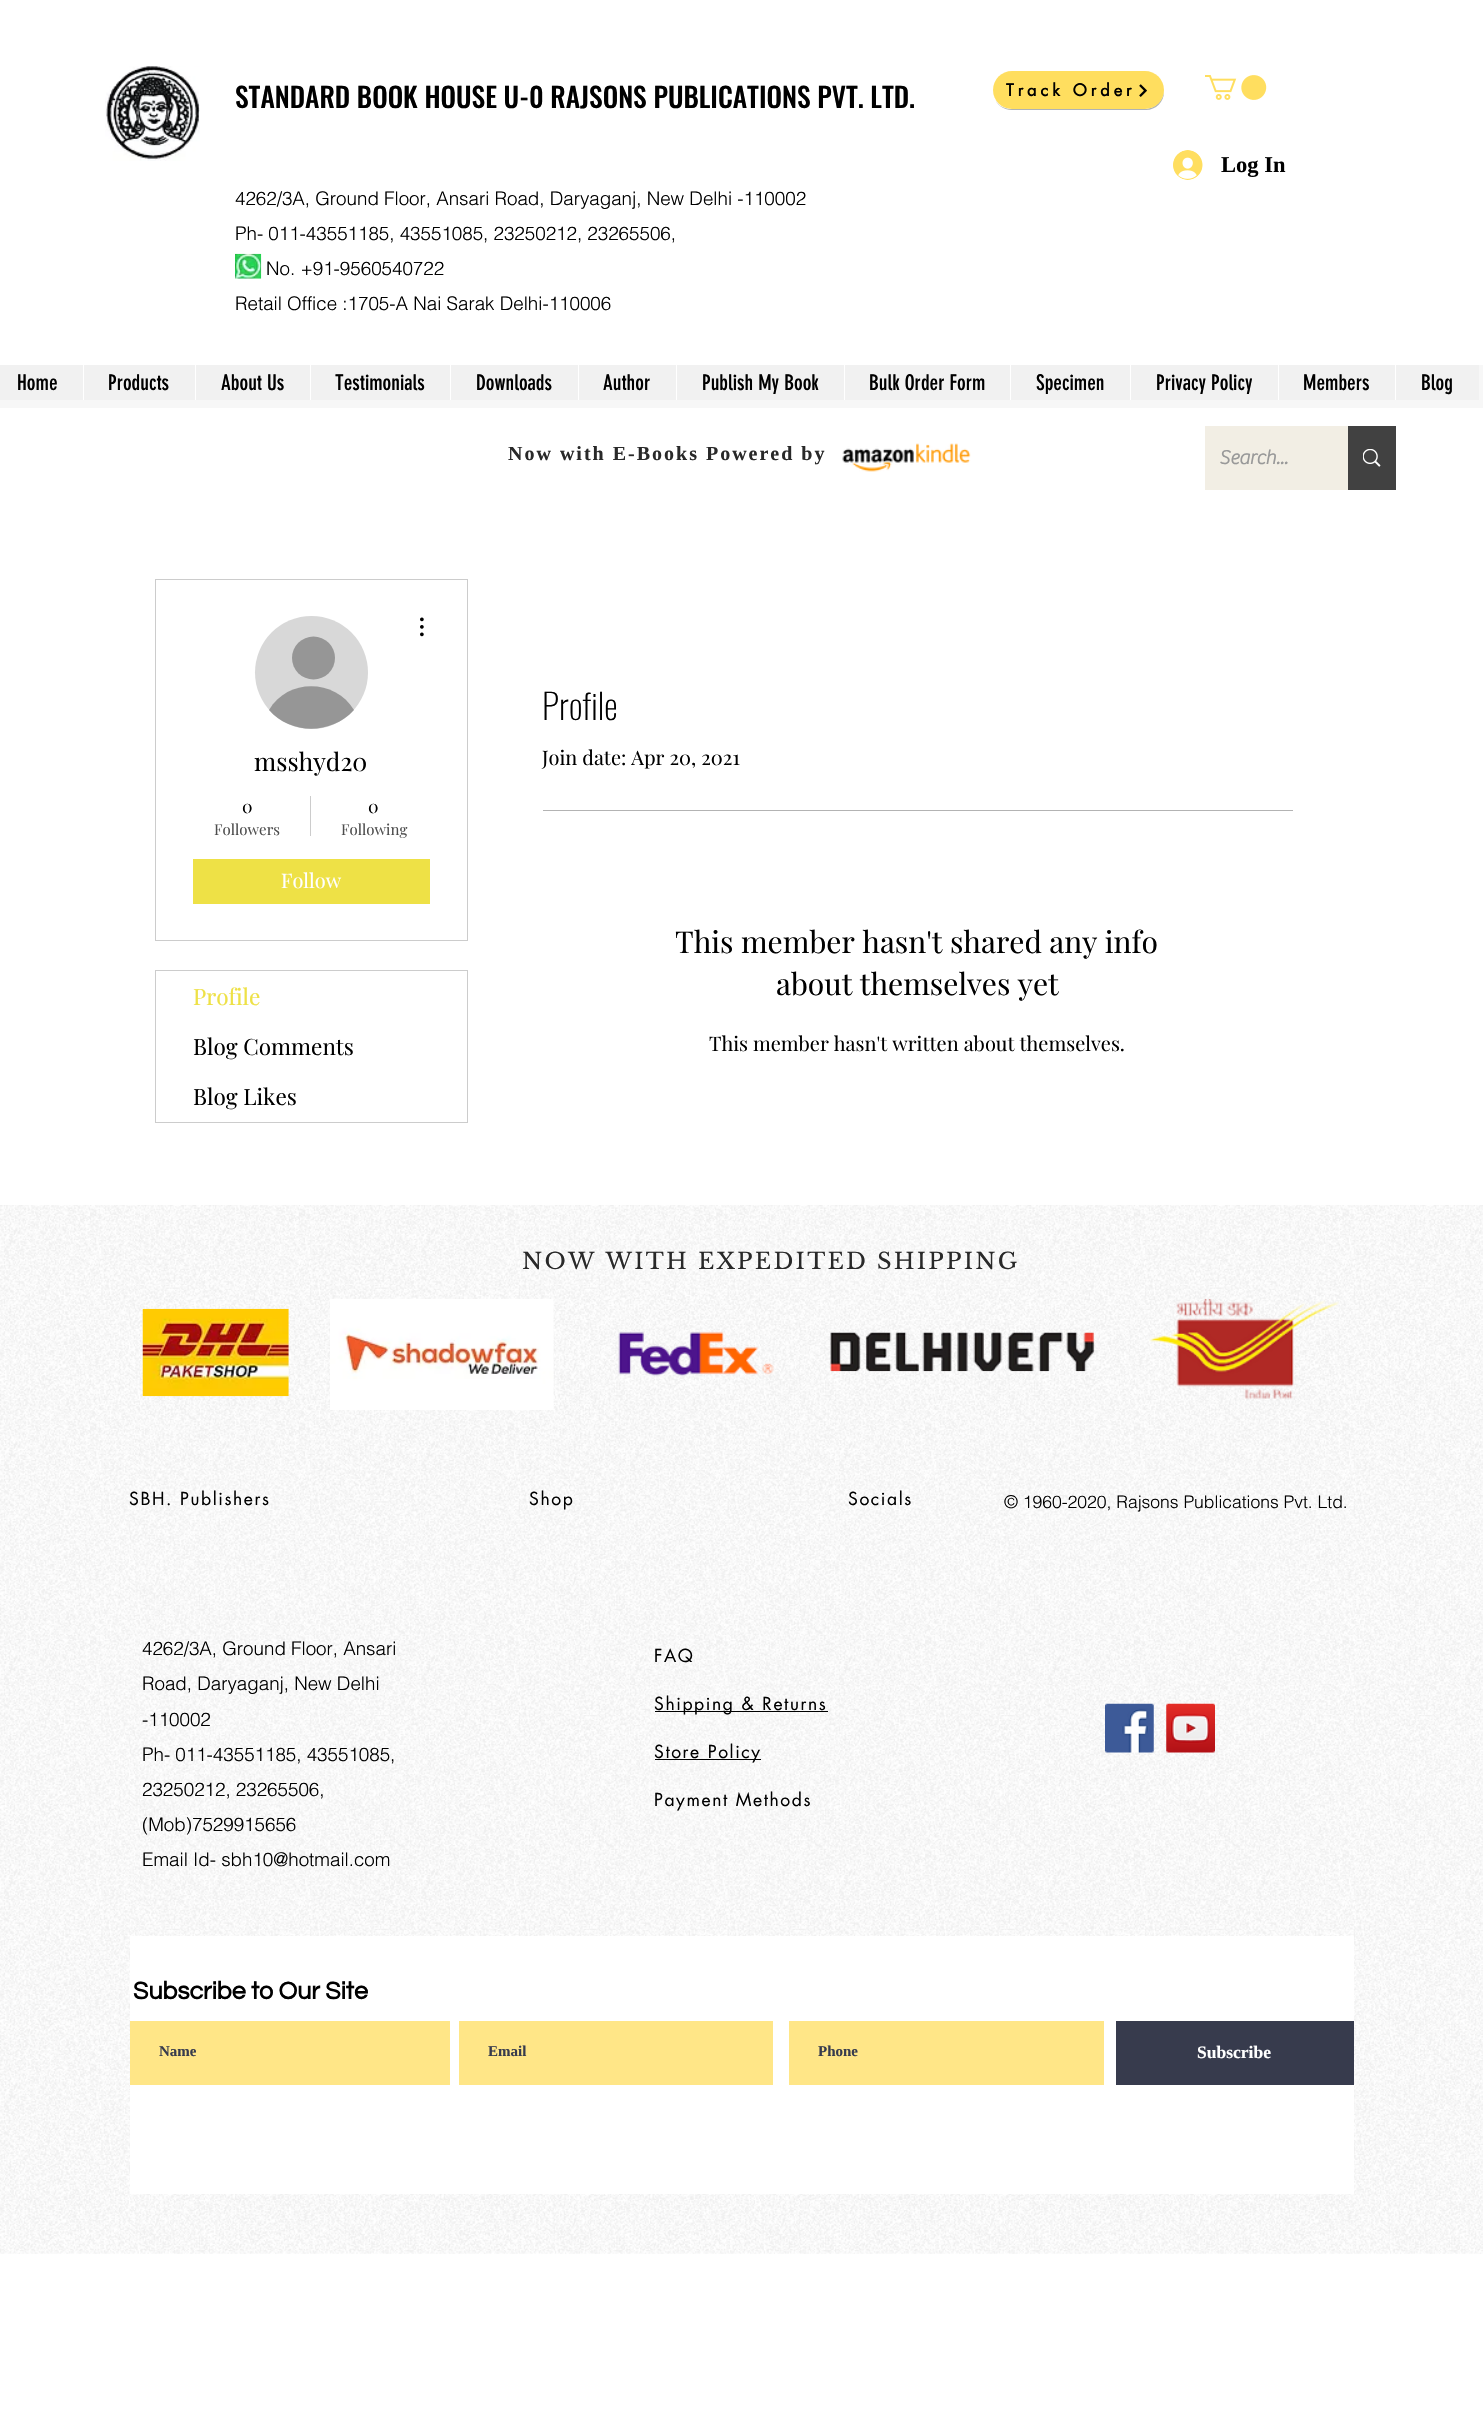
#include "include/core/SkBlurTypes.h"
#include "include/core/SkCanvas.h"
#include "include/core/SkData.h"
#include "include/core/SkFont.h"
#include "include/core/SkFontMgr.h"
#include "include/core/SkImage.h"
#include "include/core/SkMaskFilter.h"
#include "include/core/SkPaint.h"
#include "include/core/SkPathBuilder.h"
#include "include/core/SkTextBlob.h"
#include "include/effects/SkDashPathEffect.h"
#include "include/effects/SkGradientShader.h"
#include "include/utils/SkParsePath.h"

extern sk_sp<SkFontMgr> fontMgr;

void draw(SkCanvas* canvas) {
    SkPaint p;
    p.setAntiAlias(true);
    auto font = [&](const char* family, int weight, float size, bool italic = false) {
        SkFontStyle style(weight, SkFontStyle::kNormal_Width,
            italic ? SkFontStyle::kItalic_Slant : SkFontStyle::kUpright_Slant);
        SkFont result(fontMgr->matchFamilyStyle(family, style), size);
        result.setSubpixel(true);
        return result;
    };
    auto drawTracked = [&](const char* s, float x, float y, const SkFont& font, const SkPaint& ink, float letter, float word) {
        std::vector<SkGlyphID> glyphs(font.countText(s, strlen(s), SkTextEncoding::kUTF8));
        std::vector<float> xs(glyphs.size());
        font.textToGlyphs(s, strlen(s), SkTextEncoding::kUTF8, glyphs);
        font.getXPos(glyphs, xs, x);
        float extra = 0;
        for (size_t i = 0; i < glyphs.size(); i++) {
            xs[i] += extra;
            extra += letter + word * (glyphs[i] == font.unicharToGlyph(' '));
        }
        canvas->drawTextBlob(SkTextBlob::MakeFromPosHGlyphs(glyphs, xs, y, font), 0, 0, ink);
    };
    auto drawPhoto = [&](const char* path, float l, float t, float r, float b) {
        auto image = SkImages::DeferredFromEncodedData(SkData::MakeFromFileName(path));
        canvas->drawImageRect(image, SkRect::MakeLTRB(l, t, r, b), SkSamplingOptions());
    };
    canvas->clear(0xFFFFFFFF);
    drawPhoto("media/1.png", 105, 66, 200, 161);
    auto font1 = font("Oswald", 500, 27.5f);
    p.setColor(0xFF000000);
    canvas->drawString("STANDARD BOOK HOUSE U-0 RAJSONS PUBLICATIONS PVT. LTD.", 235, 108, font1, p);
    auto font2 = font("helvetica", 300, 18.75f);
    {
        const struct { const char* s; float x, y; } items[] = {
            {"4262/3A, Ground Floor, Ansari Road, Daryaganj, New Delhi -110002", 235, 205},
            {"Ph- 011-43551185, 43551085, 23250212, 23265506,", 235, 240},
            {"No. +91-9560540722", 266, 275},
            {"Retail Office :1705-A Nai Sarak Delhi-110006", 235, 310},
        };
        for (auto [s, x, y] : items) {
            canvas->drawString(s, x, y, font2, p);
        }
    }
    drawPhoto("media/2.png", 235, 253, 262, 279);
    p.setColor(0xFFAFB3B6);
    canvas->drawPath(SkPathBuilder().moveTo(994, 97).cubicTo(996, 104, 1003, 110, 1012, 110).lineTo(1146, 110).cubicTo(1156, 110, 1164, 102, 1164, 92).lineTo(1164, 88).lineTo(1164, 90).cubicTo(1164, 100, 1155, 109, 1145, 109).lineTo(1011, 109).cubicTo(1003, 109, 996, 104, 994, 97).close().detach(), p);
    p.setColor(0xFFFFDE5F);
    canvas->drawRoundRect(SkRect::MakeLTRB(993, 71, 1164, 109), 19, 19, p);
    auto font3 = font("futura", 700, 16.25f);
    p.setColor(0xFF000000);
    drawTracked("Track Order", 1006, 96, font3, p, 4, 0);
    drawPhoto("media/3.png", 1139, 84, 1147, 97);
    drawPhoto("media/4.png", 1205, 75, 1267, 100);
    drawPhoto("media/5.png", 1173, 150, 1203, 180);
    auto font4 = font("Liberation Serif", 700, 22.5f);
    canvas->drawString("Log In", 1221, 172, font4, p);
    p.setColor(0xFFF7F7F7);
    canvas->drawRect(SkRect::MakeLTRB(0, 365, 1483, 408), p);
    p.setColor(0xFFF1F1F1);
    canvas->drawRect(SkRect::MakeLTRB(0, 365, 1479, 400), p);
    auto font5 = font("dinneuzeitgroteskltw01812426", 400, 21.25f);
    p.setColor(0xFF000000);
    canvas->drawString("Home", 17, 390, font5, p);
    p.setColor(0xFFFFFFFF);
    canvas->drawRect(SkRect::MakeLTRB(83, 365, 84, 400), p);
    p.setColor(0xFF000000);
    canvas->drawString("Products", 108, 390, font5, p);
    p.setColor(0xFFFFFFFF);
    canvas->drawRect(SkRect::MakeLTRB(195, 365, 196, 400), p);
    p.setColor(0xFF000000);
    canvas->drawString("About Us", 221, 390, font5, p);
    p.setColor(0xFFFFFFFF);
    canvas->drawRect(SkRect::MakeLTRB(310, 365, 311, 400), p);
    p.setColor(0xFF000000);
    canvas->drawString("Testimonials", 335, 390, font5, p);
    p.setColor(0xFFFFFFFF);
    canvas->drawRect(SkRect::MakeLTRB(450, 365, 451, 400), p);
    p.setColor(0xFF000000);
    canvas->drawString("Downloads", 476, 390, font5, p);
    p.setColor(0xFFFFFFFF);
    canvas->drawRect(SkRect::MakeLTRB(578, 365, 579, 400), p);
    p.setColor(0xFF000000);
    canvas->drawString("Author", 603, 390, font5, p);
    p.setColor(0xFFFFFFFF);
    canvas->drawRect(SkRect::MakeLTRB(676, 365, 677, 400), p);
    p.setColor(0xFF000000);
    canvas->drawString("Publish My Book", 702, 390, font5, p);
    p.setColor(0xFFFFFFFF);
    canvas->drawRect(SkRect::MakeLTRB(844, 365, 845, 400), p);
    p.setColor(0xFF000000);
    canvas->drawString("Bulk Order Form", 869, 390, font5, p);
    p.setColor(0xFFFFFFFF);
    canvas->drawRect(SkRect::MakeLTRB(1010, 365, 1011, 400), p);
    p.setColor(0xFF000000);
    canvas->drawString("Specimen", 1036, 390, font5, p);
    p.setColor(0xFFFFFFFF);
    canvas->drawRect(SkRect::MakeLTRB(1130, 365, 1131, 400), p);
    p.setColor(0xFF000000);
    canvas->drawString("Privacy Policy", 1156, 390, font5, p);
    p.setColor(0xFFFFFFFF);
    canvas->drawRect(SkRect::MakeLTRB(1278, 365, 1279, 400), p);
    p.setColor(0xFF000000);
    canvas->drawString("Members", 1303, 390, font5, p);
    p.setColor(0xFFFFFFFF);
    canvas->drawRect(SkRect::MakeLTRB(1395, 365, 1396, 400), p);
    p.setColor(0xFF000000);
    canvas->drawString("Blog", 1421, 390, font5, p);
    auto font6 = font("Liberation Serif", 700, 20);
    p.setColor(0xFF292929);
    drawTracked("Now with E-Books Powered by", 508, 460, font6, p, 2, 0);
    drawPhoto("media/6.png", 842, 443, 971, 472);
    p.setColor(0xFFF2EEE4);
    canvas->drawRect(SkRect::MakeLTRB(1205, 426, 1348, 490), p);
    auto font7 = font("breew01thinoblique", 700, 20);
    p.setColor(0xFF999999);
    canvas->drawString("Search...", 1219, 464, font7, p);
    p.setColor(0xFF414141);
    canvas->drawRect(SkRect::MakeLTRB(1348, 426, 1396, 490), p);
    drawPhoto("media/7.png", 1363, 449, 1381, 467);
    p.setStyle(SkPaint::kStroke_Style);
    p.setStrokeWidth(1);
    p.setColor(0xFFCCCCCC);
    canvas->drawRect(SkRect::MakeLTRB(155.5f, 579.5f, 467.5f, 940.5f), p);
    p.setStyle(SkPaint::kFill_Style);
    p.setColor(0xFFD8D8D8);
    canvas->drawCircle(311.5f, 672.5f, 56.5f, p);
    p.setColor(0xFF969696);
    canvas->drawCircle(313.5f, 658, 21.5f, p);
    canvas->drawPath(SkPathBuilder().moveTo(354, 710).cubicTo(331, 735, 291, 735, 269, 710).cubicTo(288, 678, 335, 679, 354, 710).close().detach(), p);
    drawPhoto("media/8.png", 420, 617, 424, 637);
    auto font8 = font("Playfair Display", 400, 25);
    p.setColor(0xFF000000);
    canvas->drawString("msshyd20", 254, 771, font8, p);
    auto font9 = font("Playfair Display", 400, 17.5f);
    canvas->drawString("0", 242, 813, font9, p);
    auto font10 = font("Playfair Display", 400, 15);
    p.setColor(0xFF4D4D4D);
    canvas->drawString("Followers", 214, 835, font10, p);
    p.setColor(0xFFCCCCCC);
    canvas->drawRect(SkRect::MakeLTRB(310, 796, 311, 836), p);
    p.setColor(0xFF000000);
    canvas->drawString("0", 368, 813, font9, p);
    p.setColor(0xFF4D4D4D);
    canvas->drawString("Following", 341, 835, font10, p);
    p.setColor(0xFFEEE146);
    canvas->drawRect(SkRect::MakeLTRB(193, 859, 430, 904), p);
    auto font11 = font("Playfair Display", 400, 20);
    p.setColor(0xFFFFFFFF);
    canvas->drawString("Follow", 281, 888, font11, p);
    p.setStyle(SkPaint::kStroke_Style);
    p.setColor(0xFFCCCCCC);
    canvas->drawRect(SkRect::MakeLTRB(155.5f, 970.5f, 467.5f, 1122.5f), p);
    auto font12 = font("Playfair Display", 400, 22.5f);
    p.setStyle(SkPaint::kFill_Style);
    p.setColor(0xFFEEE146);
    canvas->drawString("Profile", 193, 1005, font12, p);
    p.setColor(0xFF000000);
    canvas->drawString("Blog Comments", 193, 1055, font12, p);
    canvas->drawString("Blog Likes", 193, 1105, font12, p);
    auto font13 = font("Oswald", 200, 35);
    canvas->drawString("Profile", 542, 720, font13, p);
    canvas->drawString("Join date: Apr 20, 2021", 542, 765, font11, p);
    p.setColor(0xFFB3B3B3);
    canvas->drawRect(SkRect::MakeLTRB(543, 810, 1293, 811), p);
    auto font14 = font("Playfair Display", 400, 30);
    p.setColor(0xFF000000);
    canvas->drawString("This member hasn't shared any info", 675, 953, font14, p);
    canvas->drawString("about themselves yet", 776, 995, font14, p);
    canvas->drawString("This member hasn't written about themselves.", 709, 1051, font11, p);
    drawPhoto("media/9.png", 0, 1205, 1483, 2254);
    auto font15 = font("Libre Baskerville", 400, 22.5f);
    p.setColor(0xFF292929);
    drawTracked("NOW WITH EXPEDITED SHIPPING", 522, 1269, font15, p, 2.25f, 0);
    drawPhoto("media/10.png", 142, 1308, 289, 1397);
    drawPhoto("media/11.png", 330, 1299, 554, 1410);
    drawPhoto("media/12.png", 618, 1331, 774, 1377);
    drawPhoto("media/13.png", 830, 1332, 1095, 1372);
    drawPhoto("media/14.png", 1149, 1298, 1339, 1399);
    auto font16 = font("futura", 400, 17.5f);
    p.setColor(0xFF000000);
    {
        const struct { const char* s; float x, y; } items[] = {
            {"SBH. Publishers", 129, 1505},
            {"Shop", 529, 1505},
            {"Socials", 848, 1505},
        };
        for (auto [s, x, y] : items) {
            drawTracked(s, x, y, font16, p, 1.6f, 0);
        }
    }
    auto font17 = font("helvetica", 300, 17.5f);
    canvas->drawString("© 1960-2020, Rajsons Publications Pvt. Ltd.", 1004, 1508, font17, p);
    {
        const struct { const char* s; float x, y; } items[] = {
            {"4262/3A, Ground Floor, Ansari", 142, 1655},
            {"Road, Daryaganj, New Delhi", 142, 1690},
            {"-110002", 142, 1726},
            {"Ph- 011-43551185, 43551085,", 142, 1761},
            {"23250212, 23265506,", 142, 1796},
            {"(Mob)7529915656", 142, 1831},
            {"Email Id- sbh10@hotmail.com", 142, 1866},
        };
        for (auto [s, x, y] : items) {
            canvas->drawString(s, x, y, font2, p);
        }
    }
    drawTracked("FAQ", 654, 1662, font16, p, 1.6f, 0);
    canvas->drawRect(SkRect::MakeLTRB(655, 1711, 828, 1712), p);
    drawTracked("Shipping & Returns", 654, 1710, font16, p, 1.6f, 0);
    canvas->drawRect(SkRect::MakeLTRB(655, 1759, 761, 1760), p);
    drawTracked("Store Policy", 654, 1758, font16, p, 1.6f, 0);
    drawTracked("Payment Methods", 654, 1806, font16, p, 1.6f, 0);
    drawPhoto("media/15.png", 1105, 1703, 1154, 1753);
    drawPhoto("media/16.png", 1166, 1703, 1215, 1753);
    p.setColor(0xFFFFFFFF);
    canvas->drawRect(SkRect::MakeLTRB(130, 1936, 1354, 2194), p);
    auto font18 = font("Questrial", 700, 25);
    p.setColor(0xFF000000);
    canvas->drawString("Subscribe to Our Site", 133, 1999, font18, p);
    p.setColor(0xFFFFE687);
    canvas->drawRect(SkRect::MakeLTRB(130, 2021, 450, 2085), p);
    auto font19 = font("Liberation Serif", 700, 15);
    p.setColor(0xFF373B4D);
    canvas->drawString("Name", 159, 2056, font19, p);
    p.setColor(0xFFFFE687);
    canvas->drawRect(SkRect::MakeLTRB(459, 2021, 773, 2085), p);
    p.setColor(0xFF373B4D);
    canvas->drawString("Email", 488, 2056, font19, p);
    p.setColor(0xFFFFE687);
    canvas->drawRect(SkRect::MakeLTRB(789, 2021, 1104, 2085), p);
    p.setColor(0xFF373B4D);
    canvas->drawString("Phone", 818, 2056, font19, p);
    canvas->drawRect(SkRect::MakeLTRB(1116, 2021, 1354, 2085), p);
    auto font20 = font("Liberation Serif", 700, 17.5f);
    p.setColor(0xFFFFFFFF);
    canvas->drawString("Subscribe", 1197, 2058, font20, p);
}
